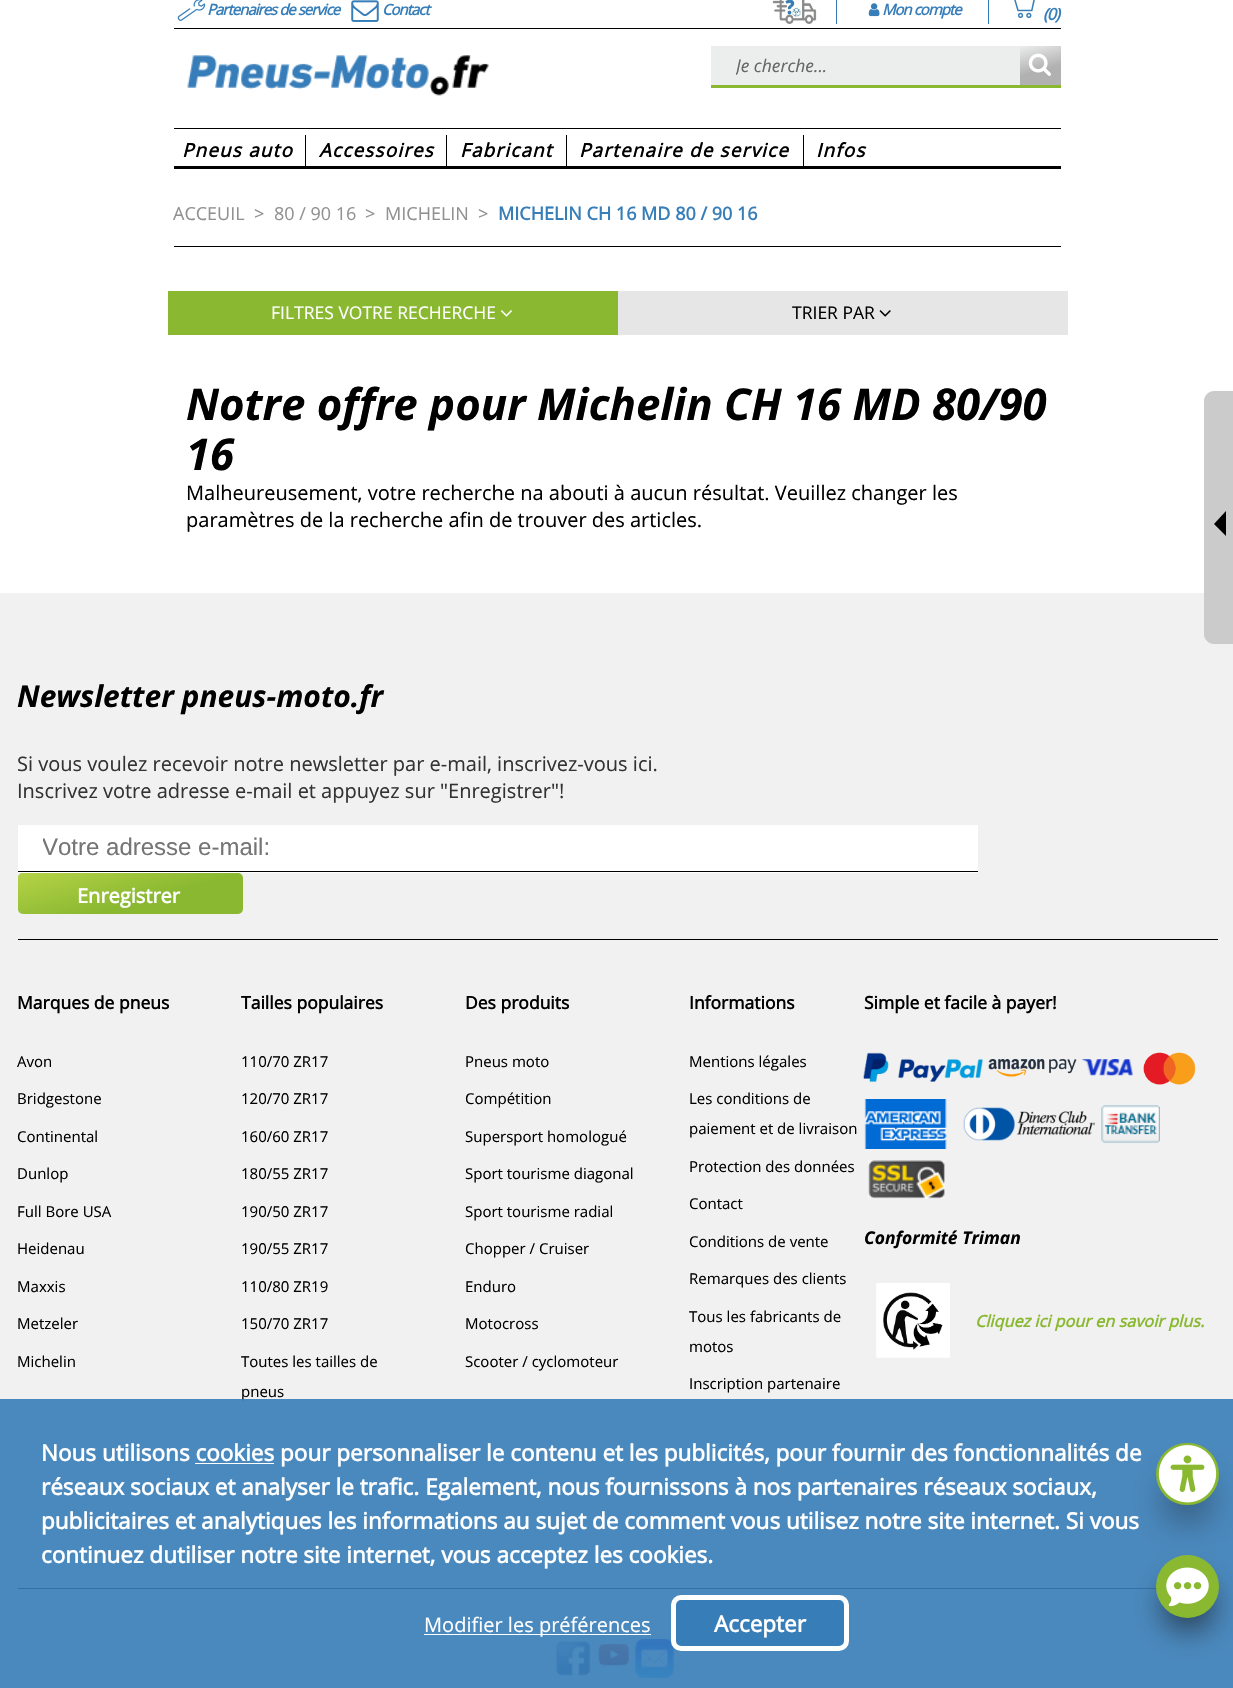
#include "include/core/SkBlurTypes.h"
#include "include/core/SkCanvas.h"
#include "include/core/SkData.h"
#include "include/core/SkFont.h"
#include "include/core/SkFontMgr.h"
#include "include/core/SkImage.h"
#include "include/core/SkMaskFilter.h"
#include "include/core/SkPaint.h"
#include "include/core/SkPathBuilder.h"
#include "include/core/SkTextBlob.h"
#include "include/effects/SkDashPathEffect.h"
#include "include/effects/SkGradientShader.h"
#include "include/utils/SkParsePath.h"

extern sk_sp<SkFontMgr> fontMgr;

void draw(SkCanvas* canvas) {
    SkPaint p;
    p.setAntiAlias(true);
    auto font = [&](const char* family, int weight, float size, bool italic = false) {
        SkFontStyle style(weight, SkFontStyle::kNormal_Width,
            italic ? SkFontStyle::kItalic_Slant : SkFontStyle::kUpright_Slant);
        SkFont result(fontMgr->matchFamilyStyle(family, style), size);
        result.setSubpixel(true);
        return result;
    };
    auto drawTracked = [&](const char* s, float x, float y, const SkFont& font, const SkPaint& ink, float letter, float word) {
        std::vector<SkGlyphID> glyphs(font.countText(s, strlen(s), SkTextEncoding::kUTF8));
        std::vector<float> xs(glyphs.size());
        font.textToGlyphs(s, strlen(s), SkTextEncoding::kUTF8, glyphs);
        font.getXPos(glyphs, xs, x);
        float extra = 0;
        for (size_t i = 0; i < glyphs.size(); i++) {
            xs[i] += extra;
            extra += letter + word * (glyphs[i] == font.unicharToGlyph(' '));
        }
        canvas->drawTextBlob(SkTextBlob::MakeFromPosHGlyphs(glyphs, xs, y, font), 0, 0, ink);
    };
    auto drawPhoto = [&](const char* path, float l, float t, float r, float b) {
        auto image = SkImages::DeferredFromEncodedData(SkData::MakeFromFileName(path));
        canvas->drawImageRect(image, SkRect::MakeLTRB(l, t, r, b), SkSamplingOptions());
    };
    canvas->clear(0xFFFFFFFF);
    p.setColor(0xFF000000);
    canvas->drawRect(SkRect::MakeLTRB(174, 28, 1061, 29), p);
    drawPhoto("media/1.png", 177, 0, 206, 21);
    auto font1 = font("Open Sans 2", 700, 15, true);
    p.setColor(0xFF377EB9);
    drawTracked("Partenaires de service", 207, 15, font1, p, -1, 0);
    drawPhoto("media/2.png", 351, 0, 379, 22);
    drawTracked("Contact", 382, 15, font1, p, -1, 0);
    canvas->drawRect(SkRect::MakeLTRB(836, 0, 837, 24), p);
    drawPhoto("media/3.png", 772, 0, 817, 24);
    canvas->drawRect(SkRect::MakeLTRB(988, 0, 989, 24), p);
    drawPhoto("media/4.png", 868, 3, 880, 17);
    drawTracked("Mon compte", 882, 15, font1, p, -1, 0);
    drawPhoto("media/5.png", 1014, 0, 1035, 18);
    auto font2 = font("Open Sans 2", 700, 16.25f, true);
    drawTracked("(0)", 1043, 20, font2, p, -1, 0);
    drawPhoto("media/6.png", 187, 55, 489, 96);
    p.setColor(0xFFECEDED);
    canvas->drawRect(SkRect::MakeLTRB(711, 46, 1020, 85), p);
    p.setColor(0xFF8AB931);
    canvas->drawRect(SkRect::MakeLTRB(711, 85, 1061, 88), p);
    canvas->save();
    canvas->clipRect(SkRect::MakeLTRB(736, 54, 986, 78));
    auto font3 = font("Open Sans", 400, 17.5f, true);
    p.setColor(0xFF666666);
    canvas->drawString("Je cherche...", 736, 72, font3, p);
    canvas->restore();
    {
        const SkColor colors[] = {0xFFECEDED, 0xFFB1B1B1};
        const float stops[] = {0, 0.6f};
        const SkPoint ends[] = {{1034, 42}, {1047, 89}};
        p.setShader(SkGradientShader::MakeLinear(ends, colors, stops, 2, SkTileMode::kClamp));
        p.setAlpha(255);
    }
    canvas->drawRect(SkRect::MakeLTRB(1020, 46, 1061, 85), p);
    drawPhoto("media/7.png", 1028, 53, 1051, 76);
    p.setShader(nullptr);
    {
        const struct { float l, t, r, b; SkColor color; } items[] = {
            {174, 128, 1061, 129, 0xFF000000},
            {174, 166, 1061, 169, 0xFF000000},
            {305, 135, 306, 166, 0xFF000000},
        };
        for (auto [l, t, r, b, color] : items) {
            p.setColor(color);
            canvas->drawRect(SkRect::MakeLTRB(l, t, r, b), p);
        }
    }
    auto font4 = font("Open Sans 2", 700, 18.75f, true);
    drawTracked("Pneus auto", 182, 157, font4, p, 1.25f, 0);
    canvas->drawRect(SkRect::MakeLTRB(446, 135, 447, 166), p);
    drawTracked("Accessoires", 319, 157, font4, p, 1.25f, 0);
    canvas->drawRect(SkRect::MakeLTRB(566, 135, 567, 166), p);
    drawTracked("Fabricant", 460, 157, font4, p, 1.25f, 0);
    canvas->drawRect(SkRect::MakeLTRB(803, 135, 804, 166), p);
    drawTracked("Partenaire de service", 579, 157, font4, p, 1.25f, 0);
    drawTracked("Infos", 816, 157, font4, p, 1.25f, 0);
    canvas->drawRect(SkRect::MakeLTRB(174, 246, 1061, 247), p);
    auto font5 = font("Open Sans", 400, 18);
    p.setColor(0xFF919191);
    {
        const struct { const char* s; float x, y; } items[] = {
            {"ACCEUIL", 173, 220},
            {">", 254, 220},
            {"80 / 90 16", 274, 220},
            {">", 365, 220},
            {"MICHELIN", 385, 220},
            {">", 478, 220},
        };
        for (auto [s, x, y] : items) {
            canvas->drawString(s, x, y, font5, p);
        }
    }
    auto font6 = font("Open Sans", 700, 18);
    p.setColor(0xFF377EB9);
    canvas->drawString("MICHELIN CH 16 MD 80 / 90 16", 498, 220, font6, p);
    p.setColor(0xFFF1F1F1);
    canvas->drawRect(SkRect::MakeLTRB(0, 593, 1233, 1688), p);
    p.setColor(0xFFCBCBCB);
    canvas->drawPath(SkPathBuilder().moveTo(1214, 391).lineTo(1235, 391).lineTo(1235, 644).lineTo(1214, 644).cubicTo(1208.5f, 644, 1204, 639.5f, 1204, 634).lineTo(1204, 401).cubicTo(1204, 395.5f, 1208.5f, 391, 1214, 391).close().detach(), p);
    p.setColor(0xFF000000);
    canvas->drawPath(SkPathBuilder().moveTo(1226, 511).lineTo(1226, 536).lineTo(1214, 524).close().detach(), p);
    p.setColor(0xFF8AB931);
    canvas->drawRect(SkRect::MakeLTRB(168, 291, 618, 335), p);
    auto font7 = font("Open Sans", 400, 17.5f);
    p.setColor(0xFFFFFFFF);
    canvas->drawString("FILTRES VOTRE RECHERCHE", 271, 319, font7, p);
    drawPhoto("media/8.png", 500, 310, 512, 317);
    p.setColor(0xFFE6E6E6);
    canvas->drawRect(SkRect::MakeLTRB(618, 291, 1068, 335), p);
    p.setColor(0xFF000000);
    canvas->drawString("TRIER PAR", 792, 319, font7, p);
    drawPhoto("media/9.png", 879, 310, 891, 317);
    auto font8 = font("Open Sans", 700, 43.75f, true);
    canvas->drawString("Notre offre pour Michelin CH 16 MD 80/90", 186, 420, font8, p);
    canvas->drawString("16", 186, 470, font8, p);
    auto font9 = font("Open Sans", 400, 20);
    canvas->drawString("Malheureusement, votre recherche na abouti à aucun résultat. Veuillez changer les", 186, 500, font9, p);
    canvas->drawString("paramètres de la recherche afin de trouver des articles.", 186, 527, font9, p);
    auto font10 = font("Open Sans", 700, 30, true);
    canvas->drawString("Newsletter pneus-moto.fr", 17, 707, font10, p);
    p.setColor(0xFF333333);
    canvas->drawString("Si vous voulez recevoir notre newsletter par e-mail, inscrivez-vous ici.", 17, 771, font9, p);
    canvas->drawString("Inscrivez votre adresse e-mail et appuyez sur \"Enregistrer\"!", 17, 798, font9, p);
    p.setColor(0xFFFFFFFF);
    canvas->drawRect(SkRect::MakeLTRB(18, 825, 978, 873), p);
    p.setColor(0xFF000000);
    canvas->drawRect(SkRect::MakeLTRB(18, 871, 978, 872), p);
    canvas->save();
    canvas->clipRect(SkRect::MakeLTRB(43, 834, 953, 861));
    auto font11 = font("Liberation Sans", 400, 24);
    p.setColor(0xFF757575);
    canvas->drawString("Votre adresse e-mail:", 42, 855, font11, p);
    canvas->restore();
    p.setColor(0xFF8AB931);
    canvas->drawRoundRect(SkRect::MakeLTRB(18, 873, 243, 914), 5, 5, p);
    {
        const SkColor colors[] = {0xFFB5D246, 0x00B5D246};
        const float stops[] = {0, 0.6f};
        const SkPoint ends[] = {{117, 846}, {143, 940}};
        p.setShader(SkGradientShader::MakeLinear(ends, colors, stops, 2, SkTileMode::kClamp));
        p.setAlpha(255);
    }
    canvas->drawRoundRect(SkRect::MakeLTRB(18, 873, 243, 914), 5, 5, p);
    auto font12 = font("Open Sans", 700, 20);
    p.setShader(nullptr);
    p.setColor(0xFFFFFFFF);
    canvas->drawString("Enregistrer", 77, 903, font12, p);
    p.setColor(0xFF000000);
    canvas->drawRect(SkRect::MakeLTRB(18, 939, 1218, 940), p);
    canvas->drawRect(SkRect::MakeLTRB(18, 1588, 1157, 1589), p);
    auto font13 = font("Open Sans", 700, 17.5f);
    canvas->drawString("Marques de pneus", 17, 1009, font13, p);
    auto font14 = font("Open Sans", 400, 15);
    {
        const struct { const char* s; float x, y; } items[] = {
            {"Avon", 17, 1067},
            {"Bridgestone", 17, 1104},
            {"Continental", 17, 1142},
            {"Dunlop", 17, 1179},
            {"Full Bore USA", 17, 1217},
            {"Heidenau", 17, 1254},
            {"Maxxis", 17, 1292},
            {"Metzeler", 17, 1329},
            {"Michelin", 17, 1367},
        };
        for (auto [s, x, y] : items) {
            canvas->drawString(s, x, y, font14, p);
        }
    }
    canvas->drawString("Tailles populaires", 241, 1009, font13, p);
    {
        const struct { const char* s; float x, y; } items[] = {
            {"110/70 ZR17", 241, 1067},
            {"120/70 ZR17", 241, 1104},
            {"160/60 ZR17", 241, 1142},
            {"180/55 ZR17", 241, 1179},
            {"190/50 ZR17", 241, 1217},
            {"190/55 ZR17", 241, 1254},
            {"110/80 ZR19", 241, 1292},
            {"150/70 ZR17", 241, 1329},
            {"Toutes les tailles de", 241, 1367},
            {"pneus", 241, 1397},
        };
        for (auto [s, x, y] : items) {
            canvas->drawString(s, x, y, font14, p);
        }
    }
    canvas->drawString("Des produits", 465, 1009, font13, p);
    {
        const struct { const char* s; float x, y; } items[] = {
            {"Pneus moto", 465, 1067},
            {"Compétition", 465, 1104},
            {"Supersport homologué", 465, 1142},
            {"Sport tourisme diagonal", 465, 1179},
            {"Sport tourisme radial", 465, 1217},
            {"Chopper / Cruiser", 465, 1254},
            {"Enduro", 465, 1292},
            {"Motocross", 465, 1329},
            {"Scooter / cyclomoteur", 465, 1367},
        };
        for (auto [s, x, y] : items) {
            canvas->drawString(s, x, y, font14, p);
        }
    }
    canvas->drawString("Informations", 689, 1009, font13, p);
    {
        const struct { const char* s; float x, y; } items[] = {
            {"Mentions légales", 689, 1067},
            {"Les conditions de", 689, 1104},
            {"paiement et de livraison", 689, 1134},
            {"Protection des données", 689, 1172},
            {"Contact", 689, 1209},
            {"Conditions de vente", 689, 1247},
            {"Remarques des clients", 689, 1284},
            {"Tous les fabricants de", 689, 1322},
            {"motos", 689, 1352},
            {"Inscription partenaire", 689, 1389},
        };
        for (auto [s, x, y] : items) {
            canvas->drawString(s, x, y, font14, p);
        }
    }
    canvas->drawString("Simple et facile à payer!", 864, 1009, font13, p);
    drawPhoto("media/10.png", 863, 1052, 983, 1082);
    drawPhoto("media/11.png", 988, 1059, 1077, 1077);
    drawPhoto("media/12.png", 1082, 1059, 1133, 1076);
    drawPhoto("media/13.png", 1143, 1052, 1196, 1085);
    drawPhoto("media/14.png", 864, 1099, 947, 1149);
    drawPhoto("media/15.png", 963, 1107, 1095, 1141);
    drawPhoto("media/16.png", 1101, 1105, 1160, 1143);
    drawPhoto("media/17.png", 868, 1160, 945, 1199);
    auto font15 = font("Open Sans", 700, 17.5f, true);
    canvas->drawString("Conformité Triman", 864, 1244, font15, p);
    drawPhoto("media/18.png", 876, 1283, 950, 1358);
    p.setColor(0xFF8AB931);
    canvas->drawString("Cliquez ici pour en savoir plus.", 975, 1327, font2, p);
    drawPhoto("media/19.png", 556, 1641, 591, 1676);
    drawPhoto("media/20.png", 598, 1644, 629, 1666);
    drawPhoto("media/21.png", 635, 1639, 674, 1678);
    p.setColor(0xE6377DB8);
    canvas->drawRect(SkRect::MakeLTRB(0, 1399, 1233, 1688), p);
    auto font16 = font("Open Sans", 700, 22.5f);
    p.setColor(0xFFFFFFFF);
    canvas->drawString("Nous utilisons cookies pour personnaliser le contenu et les publicités, pour fournir des fonctionnalités de", 41, 1461, font16, p);
    canvas->drawRect(SkRect::MakeLTRB(195, 1463, 274, 1464), p);
    {
        const struct { const char* s; float x, y; } items[] = {
            {"réseaux sociaux et analyser le trafic. Egalement, nous fournissons à nos partenaires réseaux sociaux,", 41, 1495},
            {"publicitaires et analytiques les informations au sujet de comment vous utilisez notre site internet. Si vous", 41, 1529},
            {"continuez dutiliser notre site internet, vous acceptez les cookies.", 41, 1563},
        };
        for (auto [s, x, y] : items) {
            canvas->drawString(s, x, y, font16, p);
        }
    }
    canvas->drawRect(SkRect::MakeLTRB(424, 1634, 651, 1635), p);
    canvas->drawString("Modifier les préférences", 424, 1632, font9, p);
    p.setColor(0xFF377DB8);
    canvas->drawRoundRect(SkRect::MakeLTRB(673.5f, 1597.5f, 846.5f, 1648.5f), 7.5f, 7.5f, p);
    p.setStyle(SkPaint::kStroke_Style);
    p.setStrokeWidth(5);
    p.setColor(0xFFFFFFFF);
    canvas->drawRoundRect(SkRect::MakeLTRB(673.5f, 1597.5f, 846.5f, 1648.5f), 7.5f, 7.5f, p);
    p.setStyle(SkPaint::kFill_Style);
    canvas->drawString("Accepter", 714, 1632, font16, p);
    p.setColor(0xFF26394D);
    p.setMaskFilter(SkMaskFilter::MakeBlur(kNormal_SkBlurStyle, 19));
    canvas->drawRoundRect(SkRect::MakeLTRB(1169, 1480, 1206, 1518), 18.5f, 18.5f, p);
    p.setMaskFilter(nullptr);
    p.setColor(0xFF8AB931);
    canvas->drawRoundRect(SkRect::MakeLTRB(1156, 1443, 1219, 1505), 31, 31, p);
    drawPhoto("media/22.png", 1158, 1445, 1217, 1503);
    p.setColor(0xFF26394D);
    p.setMaskFilter(SkMaskFilter::MakeBlur(kNormal_SkBlurStyle, 15.5f));
    canvas->drawRoundRect(SkRect::MakeLTRB(1163, 1580, 1213, 1630), 25, 25, p);
    p.setMaskFilter(nullptr);
    p.setColor(0xFF8AB931);
    canvas->drawCircle(1187.5f, 1586.5f, 31.5f, p);
    drawPhoto("media/23.png", 1166, 1567, 1209, 1607);
}
